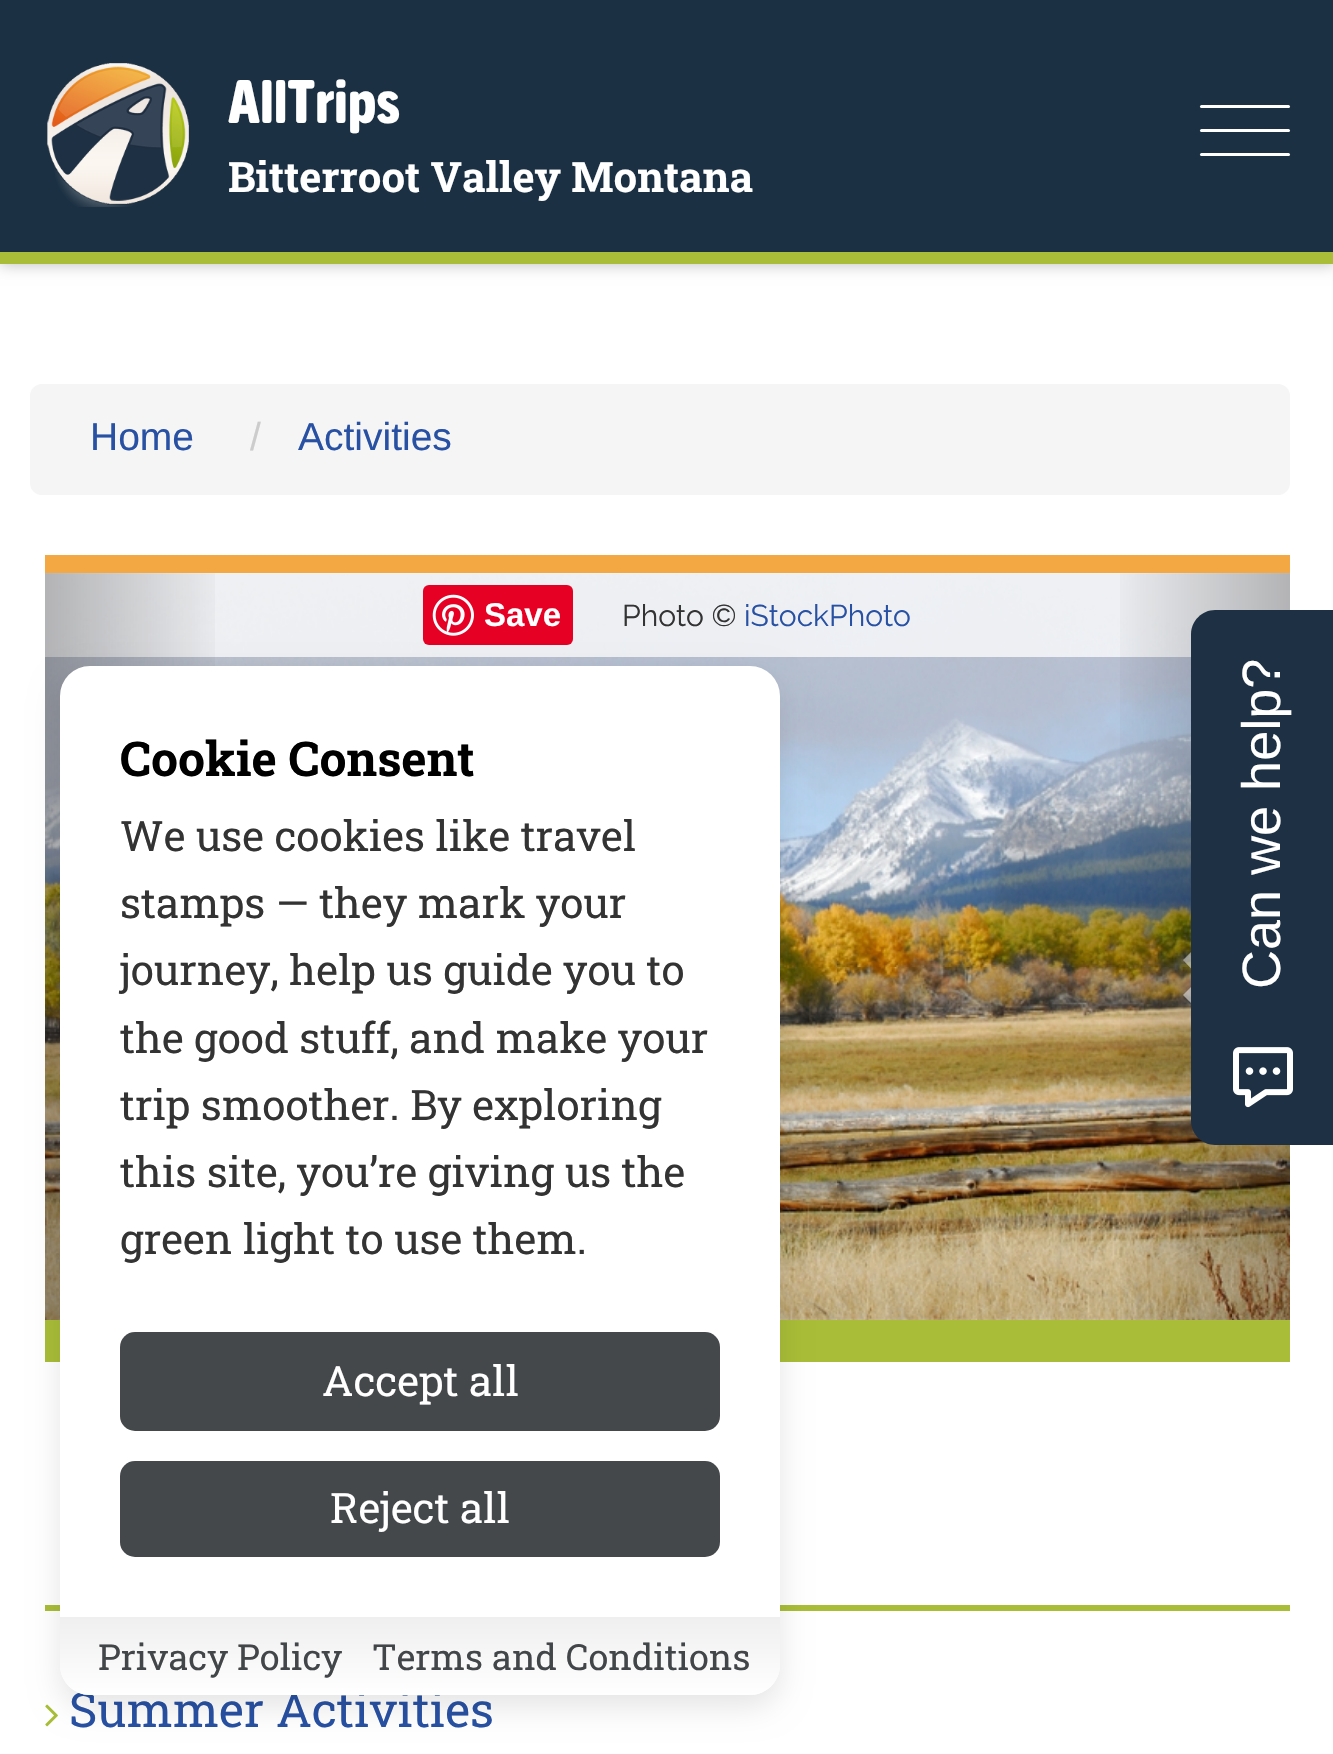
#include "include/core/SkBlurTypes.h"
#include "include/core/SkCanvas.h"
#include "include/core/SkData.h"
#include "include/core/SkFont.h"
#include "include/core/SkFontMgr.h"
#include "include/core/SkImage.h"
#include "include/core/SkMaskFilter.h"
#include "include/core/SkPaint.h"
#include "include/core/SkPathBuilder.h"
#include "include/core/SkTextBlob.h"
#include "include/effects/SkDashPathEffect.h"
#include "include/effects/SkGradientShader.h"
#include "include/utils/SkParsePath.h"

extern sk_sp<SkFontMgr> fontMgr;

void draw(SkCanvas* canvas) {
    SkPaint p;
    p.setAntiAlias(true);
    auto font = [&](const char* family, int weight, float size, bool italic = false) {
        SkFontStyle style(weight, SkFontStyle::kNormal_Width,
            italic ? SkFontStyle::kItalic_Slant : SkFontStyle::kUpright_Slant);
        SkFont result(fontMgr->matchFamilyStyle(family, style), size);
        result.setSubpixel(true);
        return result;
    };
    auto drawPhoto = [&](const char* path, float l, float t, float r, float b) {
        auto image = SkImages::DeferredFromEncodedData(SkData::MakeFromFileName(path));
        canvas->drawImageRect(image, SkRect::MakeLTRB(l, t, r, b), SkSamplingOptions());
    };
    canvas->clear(0xFFFFFFFF);
    p.setColor(0xFFBBBBBB);
    p.setMaskFilter(SkMaskFilter::MakeBlur(kNormal_SkBlurStyle, 7.5f));
    canvas->drawRect(SkRect::MakeLTRB(0, 0, 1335, 264), p);
    p.setMaskFilter(nullptr);
    p.setColor(0xFF1B3043);
    canvas->drawRect(SkRect::MakeLTRB(0, 0, 1333, 252), p);
    p.setColor(0xFFA9BD38);
    canvas->drawRect(SkRect::MakeLTRB(0, 252, 1333, 264), p);
    drawPhoto("media/1.png", 47, 63, 189, 207);
    auto font1 = font("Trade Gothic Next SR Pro", 800, 60);
    p.setColor(0xFFFFFFFF);
    canvas->drawString("AllTrips", 228, 123, font1, p);
    auto font2 = font("Roboto Slab", 700, 42);
    canvas->drawString("Bitterroot Valley Montana", 228, 192, font2, p);
    canvas->drawRoundRect(SkRect::MakeLTRB(1200, 105, 1290, 108), 1.5f, 1.5f, p);
    canvas->drawRoundRect(SkRect::MakeLTRB(1200, 129, 1290, 132), 1.5f, 1.5f, p);
    canvas->drawRoundRect(SkRect::MakeLTRB(1200, 153, 1290, 156), 1.5f, 1.5f, p);
    p.setColor(0xFFF5F5F5);
    canvas->drawRoundRect(SkRect::MakeLTRB(30, 384, 1290, 495), 12, 12, p);
    auto font3 = font("Liberation Sans", 400, 39);
    p.setColor(0xFF2851A3);
    canvas->drawString("Home", 90, 450, font3, p);
    p.setColor(0xFFCCCCCC);
    canvas->drawString("/", 250, 450, font3, p);
    p.setColor(0xFF2851A3);
    canvas->drawString("Activities", 298, 450, font3, p);
    p.setColor(0xFFF3A843);
    canvas->drawRect(SkRect::MakeLTRB(45, 555, 1290, 573), p);
    p.setColor(0xFFA9BD38);
    canvas->drawRect(SkRect::MakeLTRB(45, 1320, 1290, 1362), p);
    drawPhoto("media/2.png", 45, 573, 1290, 1320);
    p.setColor(0xBFFFFFFF);
    canvas->drawRect(SkRect::MakeLTRB(45, 573, 1290, 657), p);
    {
        const SkColor colors[] = {0x40000000, 0x00000000};
        const float stops[] = {0, 1};
        const SkPoint ends[] = {{45, 947}, {231, 947}};
        p.setShader(SkGradientShader::MakeLinear(ends, colors, stops, 2, SkTileMode::kClamp));
        p.setAlpha(255);
    }
    canvas->drawRect(SkRect::MakeLTRB(45, 573, 215, 1320), p);
    p.setShader(nullptr);
    p.setColor(0xFFE60023);
    canvas->drawRoundRect(SkRect::MakeLTRB(423, 585, 573, 645), 6, 6, p);
    drawPhoto("media/3.png", 432, 594, 474, 636);
    auto font4 = font("Liberation Sans", 700, 33);
    p.setColor(0xFFFFFFFF);
    canvas->drawString("Save", 484, 626, font4, p);
    auto font5 = font("Raleway", 400, 30);
    p.setColor(0xFF333333);
    canvas->drawString("Photo ©", 622, 626, font5, p);
    p.setColor(0xFF2851A3);
    canvas->drawString("iStockPhoto", 744, 626, font5, p);
    {
        const SkColor colors[] = {0x00000000, 0x40000000};
        const float stops[] = {0, 1};
        const SkPoint ends[] = {{1104, 947}, {1290, 947}};
        p.setShader(SkGradientShader::MakeLinear(ends, colors, stops, 2, SkTileMode::kClamp));
        p.setAlpha(255);
    }
    canvas->drawRect(SkRect::MakeLTRB(1120, 573, 1290, 1320), p);
    p.setShader(nullptr);
    p.setColor(0x80FFFFFF);
    canvas->drawPath(SkPathBuilder().moveTo(1220, 978).lineTo(1193, 1005).lineTo(1183, 995).lineTo(1200, 978).lineTo(1183, 960).lineTo(1193, 950).close().detach(), p);
    p.setColor(0xFFA9BD38);
    canvas->drawRect(SkRect::MakeLTRB(45, 1605, 1290, 1611), p);
    drawPhoto("media/4.png", 45, 1704, 58, 1727);
    auto font6 = font("Roboto Slab", 400, 48);
    p.setColor(0xFF2851A3);
    canvas->drawString("Summer Activities", 69, 1727, font6, p);
    p.setColor(0x0F000000);
    p.setMaskFilter(SkMaskFilter::MakeBlur(kNormal_SkBlurStyle, 18));
    canvas->drawRoundRect(SkRect::MakeLTRB(996, 813, 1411, 957), 24, 24, p);
    p.setMaskFilter(nullptr);
    p.setColor(0x14000000);
    p.setMaskFilter(SkMaskFilter::MakeBlur(kNormal_SkBlurStyle, 6));
    canvas->drawRoundRect(SkRect::MakeLTRB(996, 813, 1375, 957), 24, 24, p);
    p.setMaskFilter(nullptr);
    p.setColor(0xFF1E3044);
    canvas->drawPath(SkPathBuilder().moveTo(1191, 1121).lineTo(1191, 634).cubicTo(1191, 621, 1202, 610, 1215, 610).lineTo(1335, 610).lineTo(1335, 1145).lineTo(1215, 1145).cubicTo(1202, 1145, 1191, 1134, 1191, 1121).close().detach(), p);
    auto font7 = font("Liberation Sans", 400, 54);
    p.setColor(0xFFFFFFFF);
    canvas->save();
    canvas->rotate(-90, 1280, 989);
    canvas->drawString("Can we help?", 1280, 989, font7, p);
    canvas->restore();
    drawPhoto("media/5.png", 1233, 1047, 1293, 1108);
    p.setColor(0x1A000000);
    p.setMaskFilter(SkMaskFilter::MakeBlur(kNormal_SkBlurStyle, 15));
    canvas->drawRoundRect(SkRect::MakeLTRB(60, 678, 780, 1707), 30, 30, p);
    p.setMaskFilter(nullptr);
    p.setColor(0xFFFFFFFF);
    canvas->drawRoundRect(SkRect::MakeLTRB(60, 666, 780, 1695), 30, 30, p);
    auto font8 = font("Roboto Slab", 700, 48);
    p.setColor(0xFF000000);
    canvas->drawString("Cookie Consent", 120, 776, font8, p);
    auto font9 = font("Roboto Slab", 400, 42);
    p.setColor(0xFF333333);
    {
        const struct { const char* s; float x, y; } items[] = {
            {"We use cookies like travel", 120, 851},
            {"stamps — they mark your", 120, 918},
            {"journey, help us guide you to", 120, 985},
            {"the good stuff, and make your", 120, 1053},
            {"trip smoother. By exploring", 120, 1120},
            {"this site, you’re giving us the", 120, 1187},
            {"green light to use them.", 120, 1254},
        };
        for (auto [s, x, y] : items) {
            canvas->drawString(s, x, y, font9, p);
        }
    }
    p.setColor(0xFF45484A);
    canvas->drawRoundRect(SkRect::MakeLTRB(120, 1332, 720, 1431), 15, 15, p);
    p.setColor(0xFFFFFFFF);
    canvas->drawString("Accept all", 322, 1396, font9, p);
    p.setColor(0xFF45484A);
    canvas->drawRoundRect(SkRect::MakeLTRB(120, 1461, 720, 1557), 15, 15, p);
    p.setColor(0xFFFFFFFF);
    canvas->drawString("Reject all", 330, 1523, font9, p);
    {
        const SkColor colors[] = {0xFFFFFFFF, 0xFFEFEFEF};
        const float stops[] = {0, 1};
        const SkPoint ends[] = {{420, 1695}, {420, 1617}};
        p.setShader(SkGradientShader::MakeLinear(ends, colors, stops, 2, SkTileMode::kClamp));
        p.setAlpha(255);
    }
    canvas->drawPath(SkPathBuilder().moveTo(60, 1617).lineTo(780, 1617).lineTo(780, 1665).cubicTo(780, 1681.5f, 766.5f, 1695, 750, 1695).lineTo(90, 1695).cubicTo(73.5f, 1695, 60, 1681.5f, 60, 1665).close().detach(), p);
    auto font10 = font("Roboto Slab", 400, 36);
    p.setShader(nullptr);
    p.setColor(0xFF434649);
    canvas->drawString("Privacy Policy", 98, 1670, font10, p);
    canvas->drawString("Terms and Conditions", 372, 1670, font10, p);
}
